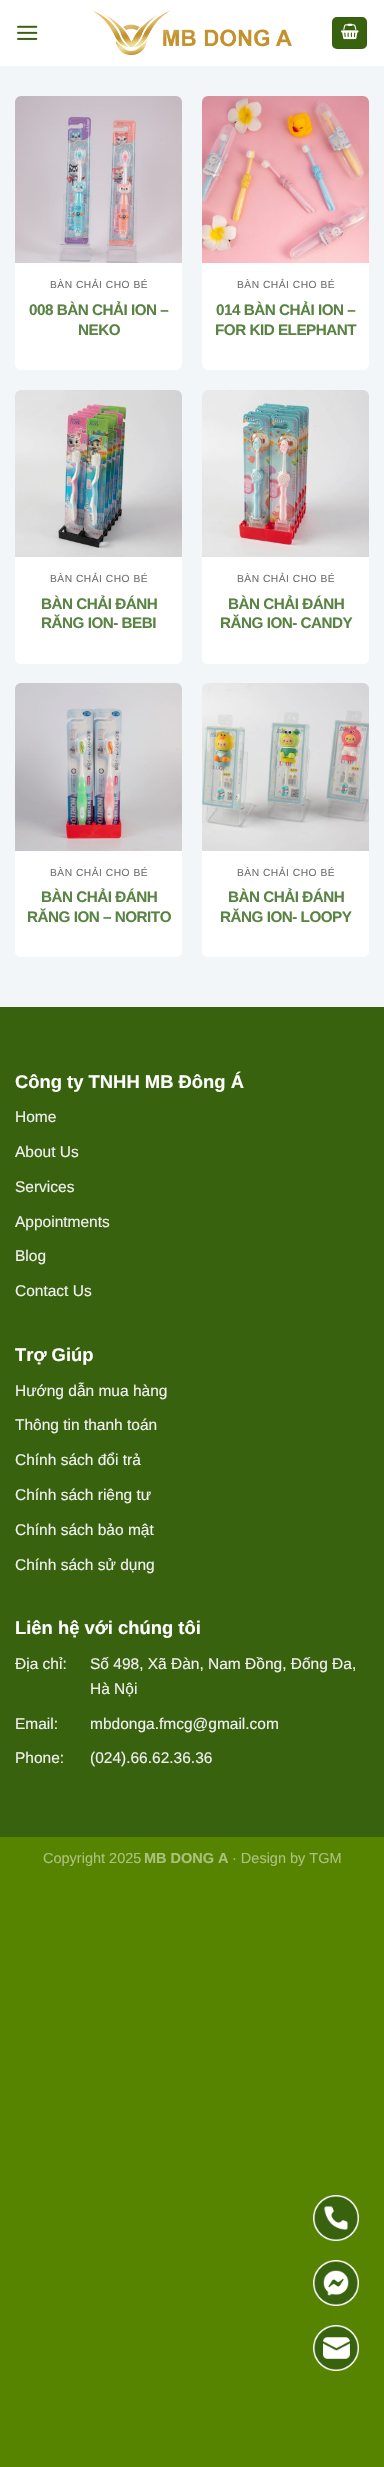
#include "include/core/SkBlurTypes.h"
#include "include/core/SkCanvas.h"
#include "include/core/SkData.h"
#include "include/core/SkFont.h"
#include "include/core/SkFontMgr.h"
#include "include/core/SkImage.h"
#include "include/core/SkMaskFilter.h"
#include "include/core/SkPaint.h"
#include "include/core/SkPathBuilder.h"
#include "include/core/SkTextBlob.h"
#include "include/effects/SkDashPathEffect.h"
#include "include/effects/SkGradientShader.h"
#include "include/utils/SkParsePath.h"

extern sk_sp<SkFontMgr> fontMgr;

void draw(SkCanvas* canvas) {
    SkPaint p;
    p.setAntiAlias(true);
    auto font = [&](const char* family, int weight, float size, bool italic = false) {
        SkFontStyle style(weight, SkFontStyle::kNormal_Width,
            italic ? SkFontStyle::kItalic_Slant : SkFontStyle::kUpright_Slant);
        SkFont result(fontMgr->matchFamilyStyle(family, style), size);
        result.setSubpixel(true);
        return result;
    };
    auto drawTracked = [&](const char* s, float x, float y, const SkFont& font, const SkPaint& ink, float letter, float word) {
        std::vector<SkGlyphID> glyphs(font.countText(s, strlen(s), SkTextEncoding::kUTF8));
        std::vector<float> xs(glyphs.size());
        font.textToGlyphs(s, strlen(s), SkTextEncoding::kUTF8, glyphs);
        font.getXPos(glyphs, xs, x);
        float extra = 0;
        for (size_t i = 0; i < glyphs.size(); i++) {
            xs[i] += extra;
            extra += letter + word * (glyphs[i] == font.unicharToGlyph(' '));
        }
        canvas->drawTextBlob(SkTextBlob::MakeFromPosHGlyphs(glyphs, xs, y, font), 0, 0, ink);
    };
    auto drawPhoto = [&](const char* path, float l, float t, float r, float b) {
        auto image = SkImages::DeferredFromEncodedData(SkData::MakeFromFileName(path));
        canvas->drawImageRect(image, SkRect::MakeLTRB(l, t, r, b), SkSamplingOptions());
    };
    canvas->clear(0xFF568300);
    p.setColor(0xFFFFFFFF);
    canvas->drawRect(SkRect::MakeLTRB(0, 0, 384, 66), p);
    drawPhoto("media/1.png", 17, 25, 38, 40);
    drawPhoto("media/2.png", 93, 10, 292, 56);
    p.setColor(0xFF38620E);
    canvas->drawRoundRect(SkRect::MakeLTRB(332, 17, 367, 49), 5, 5, p);
    p.setStyle(SkPaint::kStroke_Style);
    p.setStrokeWidth(1);
    p.setColor(0x0D000000);
    canvas->drawRect(SkRect::MakeLTRB(332.5f, 17.5f, 366.5f, 48.5f), p);
    drawPhoto("media/3.png", 341, 23, 359, 40);
    p.setStyle(SkPaint::kFill_Style);
    p.setColor(0xFFF3F6F9);
    canvas->drawRect(SkRect::MakeLTRB(0, 66, 384, 1007), p);
    drawPhoto("media/4.png", 15, 96, 182, 263);
    p.setColor(0xFFFFFFFF);
    canvas->drawPath(SkPathBuilder().moveTo(15, 263).lineTo(182, 263).lineTo(182, 364).cubicTo(182, 367.5f, 179.5f, 370, 176, 370).lineTo(21, 370).cubicTo(17.5f, 370, 15, 367.5f, 15, 364).close().detach(), p);
    auto font1 = font("Liberation Sans", 400, 10.25f);
    p.setColor(0xFF707070);
    drawTracked("BÀN CHẢI CHO BÉ", 50, 288, font1, p, 0.5f, 0);
    auto font2 = font("Liberation Sans", 700, 15.25f);
    p.setColor(0xFF588343);
    drawTracked("008 BÀN CHẢI ION –", 29, 315, font2, p, -0.5f, 0);
    drawTracked("NEKO", 78, 335, font2, p, -0.5f, 0);
    drawPhoto("media/5.png", 202, 96, 369, 263);
    p.setColor(0xFFFFFFFF);
    canvas->drawPath(SkPathBuilder().moveTo(202, 263).lineTo(369, 263).lineTo(369, 364).cubicTo(369, 367.5f, 366.5f, 370, 363, 370).lineTo(208, 370).cubicTo(204.5f, 370, 202, 367.5f, 202, 364).close().detach(), p);
    p.setColor(0xFF707070);
    drawTracked("BÀN CHẢI CHO BÉ", 237, 288, font1, p, 0.5f, 0);
    p.setColor(0xFF588343);
    drawTracked("014 BÀN CHẢI ION –", 216, 315, font2, p, -0.5f, 0);
    drawTracked("FOR KID ELEPHANT", 215, 335, font2, p, -0.5f, 0);
    drawPhoto("media/6.png", 15, 390, 182, 557);
    p.setColor(0xFFFFFFFF);
    canvas->drawPath(SkPathBuilder().moveTo(15, 557).lineTo(182, 557).lineTo(182, 658).cubicTo(182, 661.5f, 179.5f, 664, 176, 664).lineTo(21, 664).cubicTo(17.5f, 664, 15, 661.5f, 15, 658).close().detach(), p);
    p.setColor(0xFF707070);
    drawTracked("BÀN CHẢI CHO BÉ", 50, 582, font1, p, 0.5f, 0);
    p.setColor(0xFF588343);
    drawTracked("BÀN CHẢI ĐÁNH", 41, 609, font2, p, -0.5f, 0);
    drawTracked("RĂNG ION- BEBI", 41, 628, font2, p, -0.5f, 0);
    drawPhoto("media/7.png", 202, 390, 369, 557);
    p.setColor(0xFFFFFFFF);
    canvas->drawPath(SkPathBuilder().moveTo(202, 557).lineTo(369, 557).lineTo(369, 658).cubicTo(369, 661.5f, 366.5f, 664, 363, 664).lineTo(208, 664).cubicTo(204.5f, 664, 202, 661.5f, 202, 658).close().detach(), p);
    p.setColor(0xFF707070);
    drawTracked("BÀN CHẢI CHO BÉ", 237, 582, font1, p, 0.5f, 0);
    p.setColor(0xFF588343);
    drawTracked("BÀN CHẢI ĐÁNH", 228, 609, font2, p, -0.5f, 0);
    drawTracked("RĂNG ION- CANDY", 220, 628, font2, p, -0.5f, 0);
    drawPhoto("media/8.png", 15, 683, 182, 851);
    p.setColor(0xFFFFFFFF);
    canvas->drawPath(SkPathBuilder().moveTo(15, 851).lineTo(182, 851).lineTo(182, 951).cubicTo(182, 954.5f, 179.5f, 957, 176, 957).lineTo(21, 957).cubicTo(17.5f, 957, 15, 954.5f, 15, 951).close().detach(), p);
    p.setColor(0xFF707070);
    drawTracked("BÀN CHẢI CHO BÉ", 50, 876, font1, p, 0.5f, 0);
    p.setColor(0xFF588343);
    drawTracked("BÀN CHẢI ĐÁNH", 41, 902, font2, p, -0.5f, 0);
    drawTracked("RĂNG ION – NORITO", 27, 922, font2, p, -0.5f, 0);
    drawPhoto("media/9.png", 202, 683, 369, 851);
    p.setColor(0xFFFFFFFF);
    canvas->drawPath(SkPathBuilder().moveTo(202, 851).lineTo(369, 851).lineTo(369, 951).cubicTo(369, 954.5f, 366.5f, 957, 363, 957).lineTo(208, 957).cubicTo(204.5f, 957, 202, 954.5f, 202, 951).close().detach(), p);
    p.setColor(0xFF707070);
    drawTracked("BÀN CHẢI CHO BÉ", 237, 876, font1, p, 0.5f, 0);
    p.setColor(0xFF588343);
    drawTracked("BÀN CHẢI ĐÁNH", 228, 902, font2, p, -0.5f, 0);
    drawTracked("RĂNG ION- LOOPY", 220, 922, font2, p, -0.5f, 0);
    p.setColor(0xFF38620E);
    canvas->drawRect(SkRect::MakeLTRB(0, 1007, 384, 1837), p);
    auto font3 = font("Liberation Sans", 700, 18.4f);
    p.setColor(0xFFFFFFFF);
    canvas->drawString("Công ty TNHH MB Đông Á", 15, 1088, font3, p);
    auto font4 = font("Liberation Sans", 400, 15.5f);
    p.setColor(0xFFF1F1F1);
    {
        const struct { const char* s; float x, y; } items[] = {
            {"Home", 15, 1122},
            {"About Us", 15, 1157},
            {"Services", 15, 1192},
            {"Appointments", 15, 1227},
            {"Blog", 15, 1261},
            {"Contact Us", 15, 1296},
        };
        for (auto [s, x, y] : items) {
            canvas->drawString(s, x, y, font4, p);
        }
    }
    p.setColor(0xFFFFFFFF);
    canvas->drawString("Trợ Giúp", 15, 1361, font3, p);
    p.setColor(0xFFF1F1F1);
    {
        const struct { const char* s; float x, y; } items[] = {
            {"Hướng dẫn mua hàng", 15, 1396},
            {"Thông tin thanh toán", 15, 1430},
            {"Chính sách đổi trả", 15, 1465},
            {"Chính sách riêng tư", 15, 1500},
            {"Chính sách bảo mật", 15, 1535},
            {"Chính sách sử dụng", 15, 1570},
        };
        for (auto [s, x, y] : items) {
            canvas->drawString(s, x, y, font4, p);
        }
    }
    p.setColor(0xFFFFFFFF);
    canvas->drawString("Liên hệ với chúng tôi", 15, 1634, font3, p);
    p.setColor(0xFFF1F1F1);
    {
        const struct { const char* s; float x, y; } items[] = {
            {"Địa chỉ:", 15, 1669},
            {"Số 498, Xã Đàn, Nam Đồng, Đống Đa,", 90, 1669},
            {"Hà Nội", 90, 1694},
            {"Email:", 15, 1729},
            {"mbdonga.fmcg@gmail.com", 90, 1729},
            {"Phone:", 15, 1763},
            {"(024).66.62.36.36", 90, 1763},
        };
        for (auto [s, x, y] : items) {
            canvas->drawString(s, x, y, font4, p);
        }
    }
    drawPhoto("media/10.png", 313, 2195, 359, 2241);
    drawPhoto("media/11.png", 313, 2260, 359, 2306);
    drawPhoto("media/12.png", 313, 2325, 359, 2371);
    auto font5 = font("Liberation Sans", 400, 14.5f);
    p.setColor(0xFFABC180);
    canvas->drawString("Copyright 2025", 43, 1863, font5, p);
    auto font6 = font("Liberation Sans", 700, 14.5f);
    canvas->drawString("MB DONG A", 144, 1863, font6, p);
    canvas->drawString("· Design by TGM", 232, 1863, font5, p);
}
